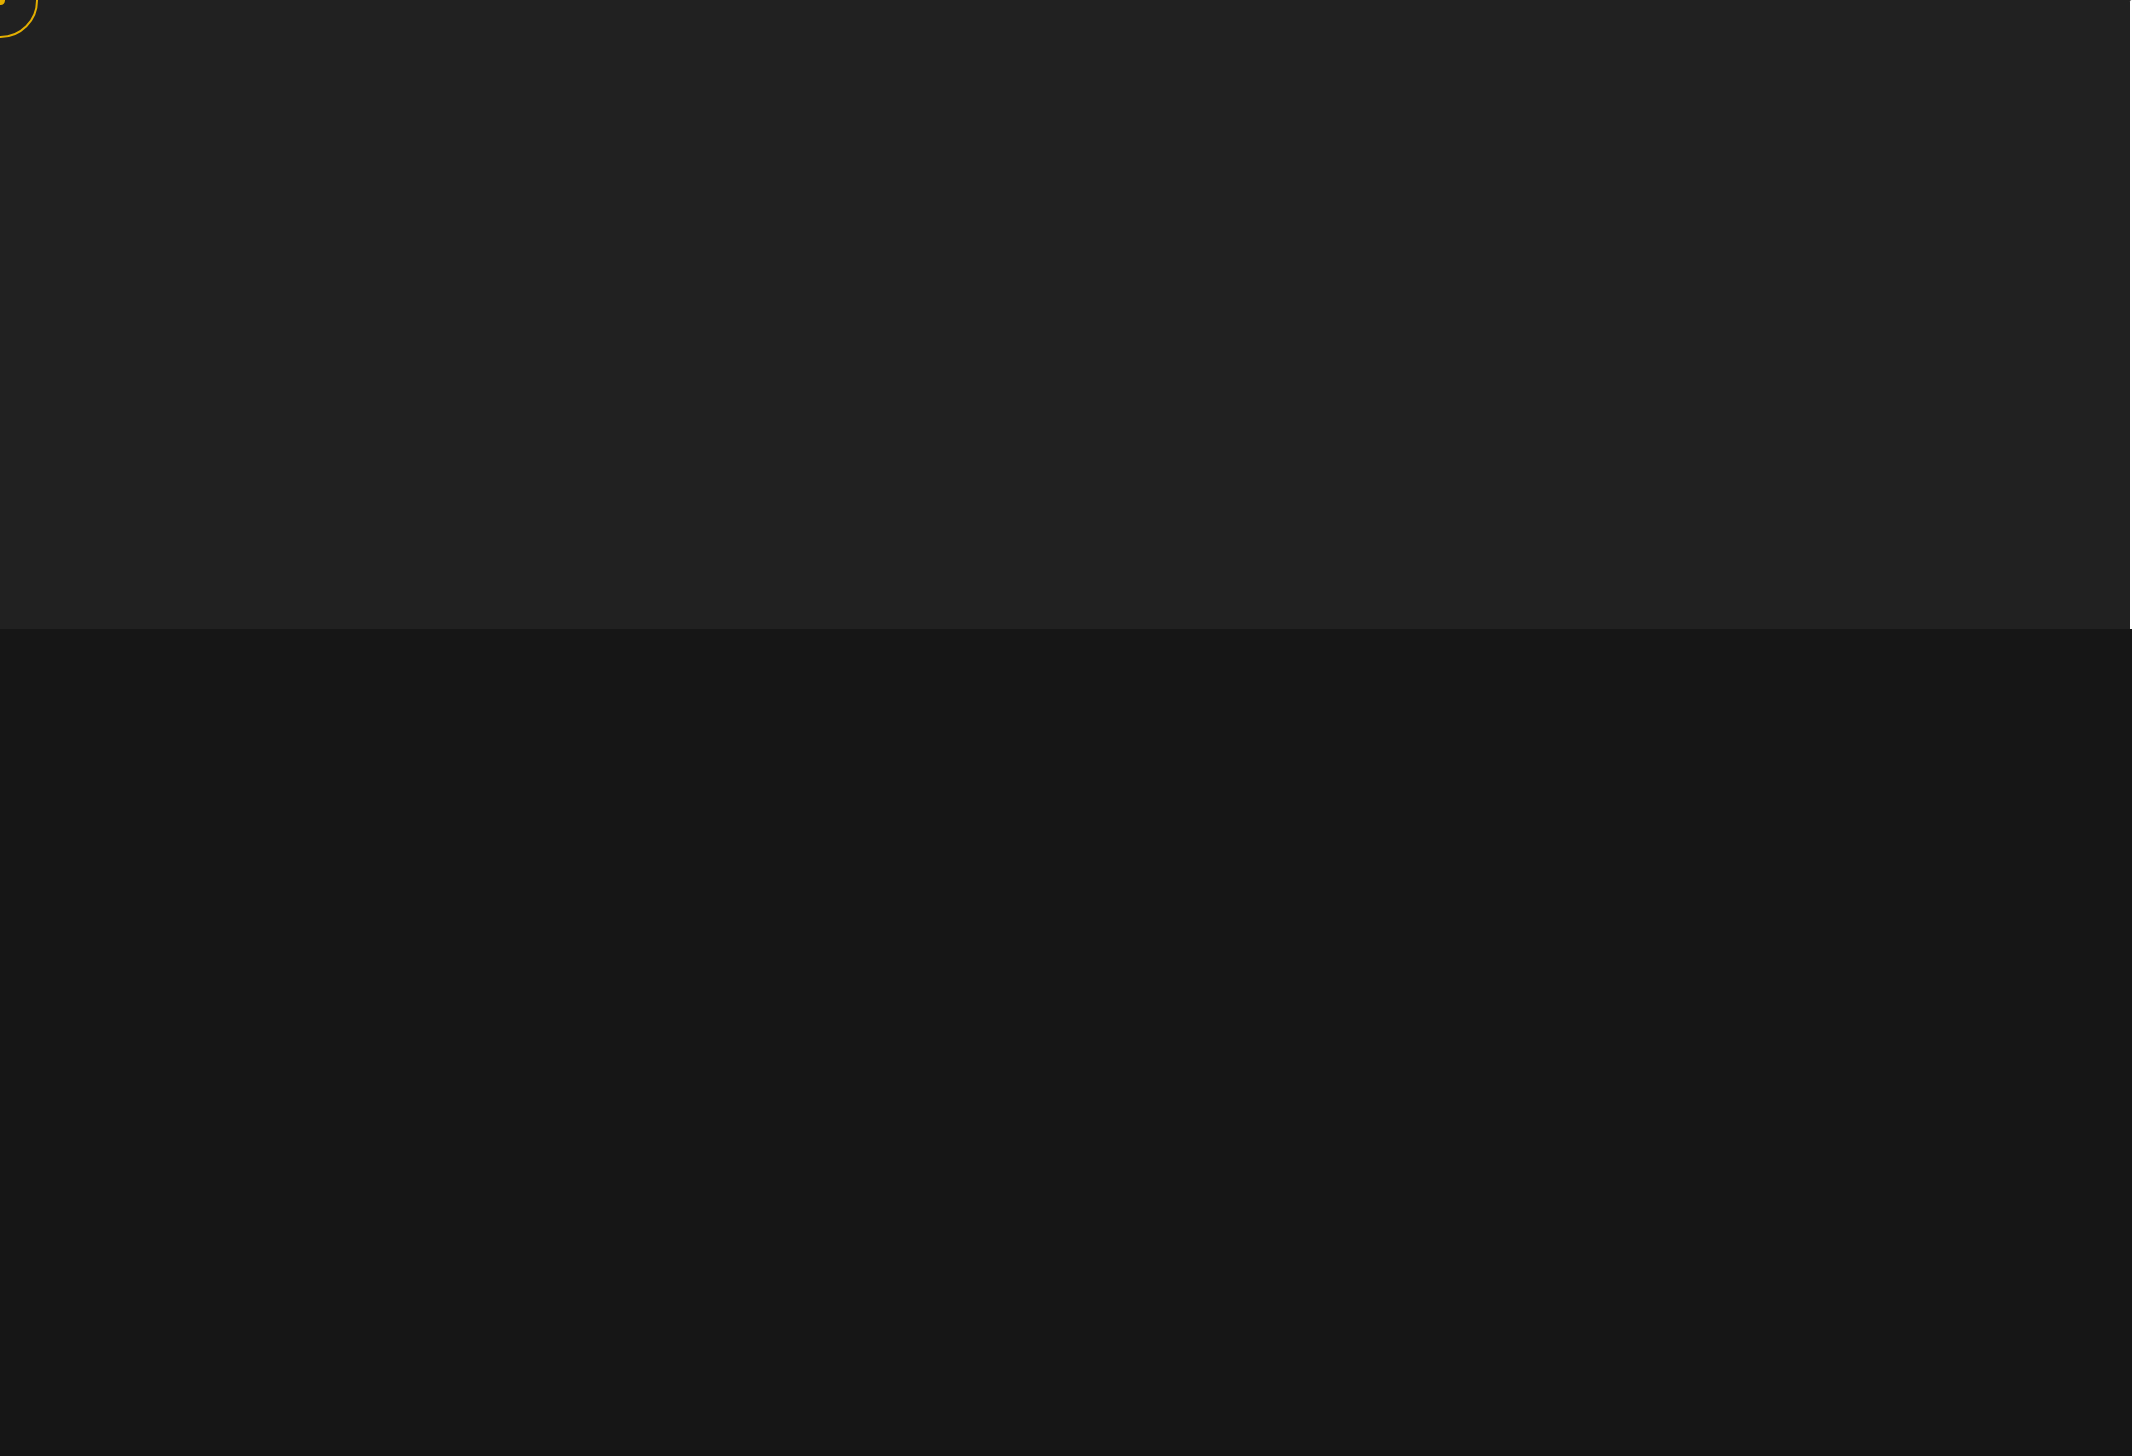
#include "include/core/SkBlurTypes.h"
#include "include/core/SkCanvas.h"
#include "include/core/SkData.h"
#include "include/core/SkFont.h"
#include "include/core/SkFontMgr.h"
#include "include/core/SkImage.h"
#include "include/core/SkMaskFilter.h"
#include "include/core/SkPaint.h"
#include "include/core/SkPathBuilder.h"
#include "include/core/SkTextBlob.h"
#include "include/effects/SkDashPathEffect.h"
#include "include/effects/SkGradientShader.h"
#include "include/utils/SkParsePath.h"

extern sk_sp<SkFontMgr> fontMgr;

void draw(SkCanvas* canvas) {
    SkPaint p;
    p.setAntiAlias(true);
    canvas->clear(0xFF212121);
    p.setStyle(SkPaint::kStroke_Style);
    p.setStrokeWidth(2);
    p.setColor(0xFFE3AF00);
    canvas->drawCircle(0.5f, 0.5f, 36.5f, p);
    p.setStyle(SkPaint::kFill_Style);
    canvas->drawCircle(0.5f, 0.5f, 4.5f, p);
    p.setColor(0xFF4D4D4D);
    canvas->drawRect(SkRect::MakeLTRB(2130, 0, 2132, 2), p);
    p.setColor(0xFFFFFFFF);
    canvas->drawRoundRect(SkRect::MakeLTRB(2130, 0, 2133, 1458), 1.5f, 1.5f, p);
    p.setColor(0xFF161616);
    canvas->drawRect(SkRect::MakeLTRB(0, 629, 2132, 1456), p);
}
